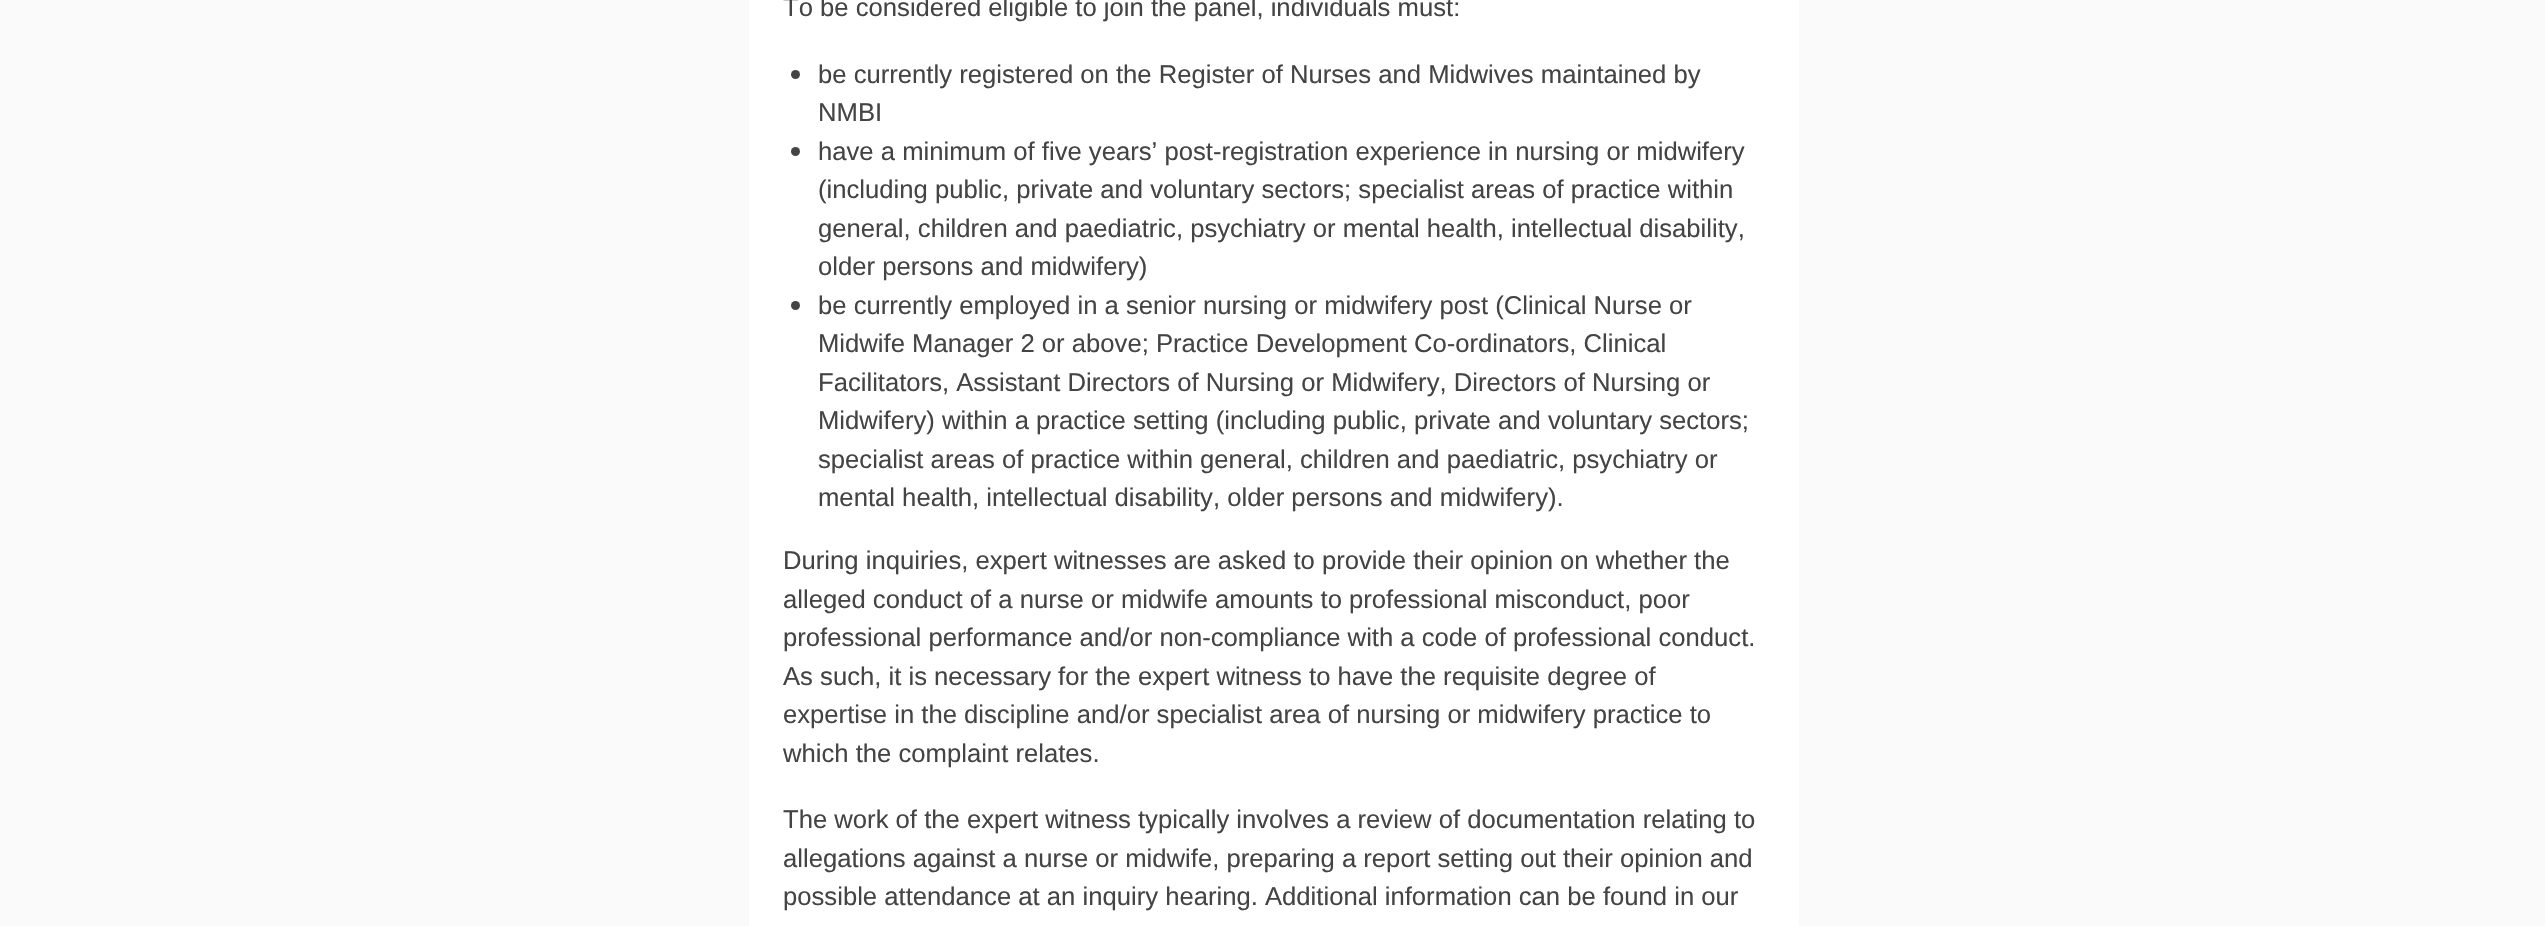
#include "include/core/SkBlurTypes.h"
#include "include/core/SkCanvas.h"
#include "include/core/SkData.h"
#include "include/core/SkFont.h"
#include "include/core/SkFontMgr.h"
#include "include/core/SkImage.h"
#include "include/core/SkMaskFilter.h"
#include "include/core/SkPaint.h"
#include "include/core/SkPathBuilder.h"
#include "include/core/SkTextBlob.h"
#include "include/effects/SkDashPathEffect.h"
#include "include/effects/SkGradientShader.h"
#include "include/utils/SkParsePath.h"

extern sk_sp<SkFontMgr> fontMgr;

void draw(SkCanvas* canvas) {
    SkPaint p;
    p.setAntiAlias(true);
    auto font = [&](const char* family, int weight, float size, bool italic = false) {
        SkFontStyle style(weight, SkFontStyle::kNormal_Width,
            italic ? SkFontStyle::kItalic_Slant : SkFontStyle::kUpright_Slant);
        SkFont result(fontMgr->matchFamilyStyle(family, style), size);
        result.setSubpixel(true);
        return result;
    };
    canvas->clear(0xFFFAFAFA);
    p.setColor(0xFFFFFFFF);
    canvas->drawRect(SkRect::MakeLTRB(749, 0, 1799, 926), p);
    auto font1 = font("Liberation Sans", 400, 25.65f);
    p.setColor(0xFF444444);
    canvas->drawString("To be considered eligible to join the panel, individuals must:", 783, 16, font1, p);
    canvas->drawCircle(795.5f, 74.5f, 4.5f, p);
    canvas->drawString("be currently registered on the Register of Nurses and Midwives maintained by", 818, 83, font1, p);
    canvas->drawString("NMBI", 818, 121, font1, p);
    canvas->drawCircle(795.5f, 151.5f, 4.5f, p);
    {
        const struct { const char* s; float x, y; } items[] = {
            {"have a minimum of five years’ post-registration experience in nursing or midwifery", 818, 160},
            {"(including public, private and voluntary sectors; specialist areas of practice within", 818, 198},
            {"general, children and paediatric, psychiatry or mental health, intellectual disability,", 818, 237},
            {"older persons and midwifery)", 818, 275},
        };
        for (auto [s, x, y] : items) {
            canvas->drawString(s, x, y, font1, p);
        }
    }
    canvas->drawCircle(795.5f, 305.5f, 4.5f, p);
    {
        const struct { const char* s; float x, y; } items[] = {
            {"be currently employed in a senior nursing or midwifery post (Clinical Nurse or", 818, 314},
            {"Midwife Manager 2 or above; Practice Development Co-ordinators, Clinical", 818, 352},
            {"Facilitators, Assistant Directors of Nursing or Midwifery, Directors of Nursing or", 818, 391},
            {"Midwifery) within a practice setting (including public, private and voluntary sectors;", 818, 429},
            {"specialist areas of practice within general, children and paediatric, psychiatry or", 818, 468},
            {"mental health, intellectual disability, older persons and midwifery).", 818, 506},
            {"During inquiries, expert witnesses are asked to provide their opinion on whether the", 783, 569},
            {"alleged conduct of a nurse or midwife amounts to professional misconduct, poor", 783, 608},
            {"professional performance and/or non-compliance with a code of professional conduct.", 783, 646},
            {"As such, it is necessary for the expert witness to have the requisite degree of", 783, 685},
            {"expertise in the discipline and/or specialist area of nursing or midwifery practice to", 783, 723},
            {"which the complaint relates.", 783, 762},
            {"The work of the expert witness typically involves a review of documentation relating to", 783, 828},
            {"allegations against a nurse or midwife, preparing a report setting out their opinion and", 783, 867},
            {"possible attendance at an inquiry hearing. Additional information can be found in our", 783, 905},
        };
        for (auto [s, x, y] : items) {
            canvas->drawString(s, x, y, font1, p);
        }
    }
}
